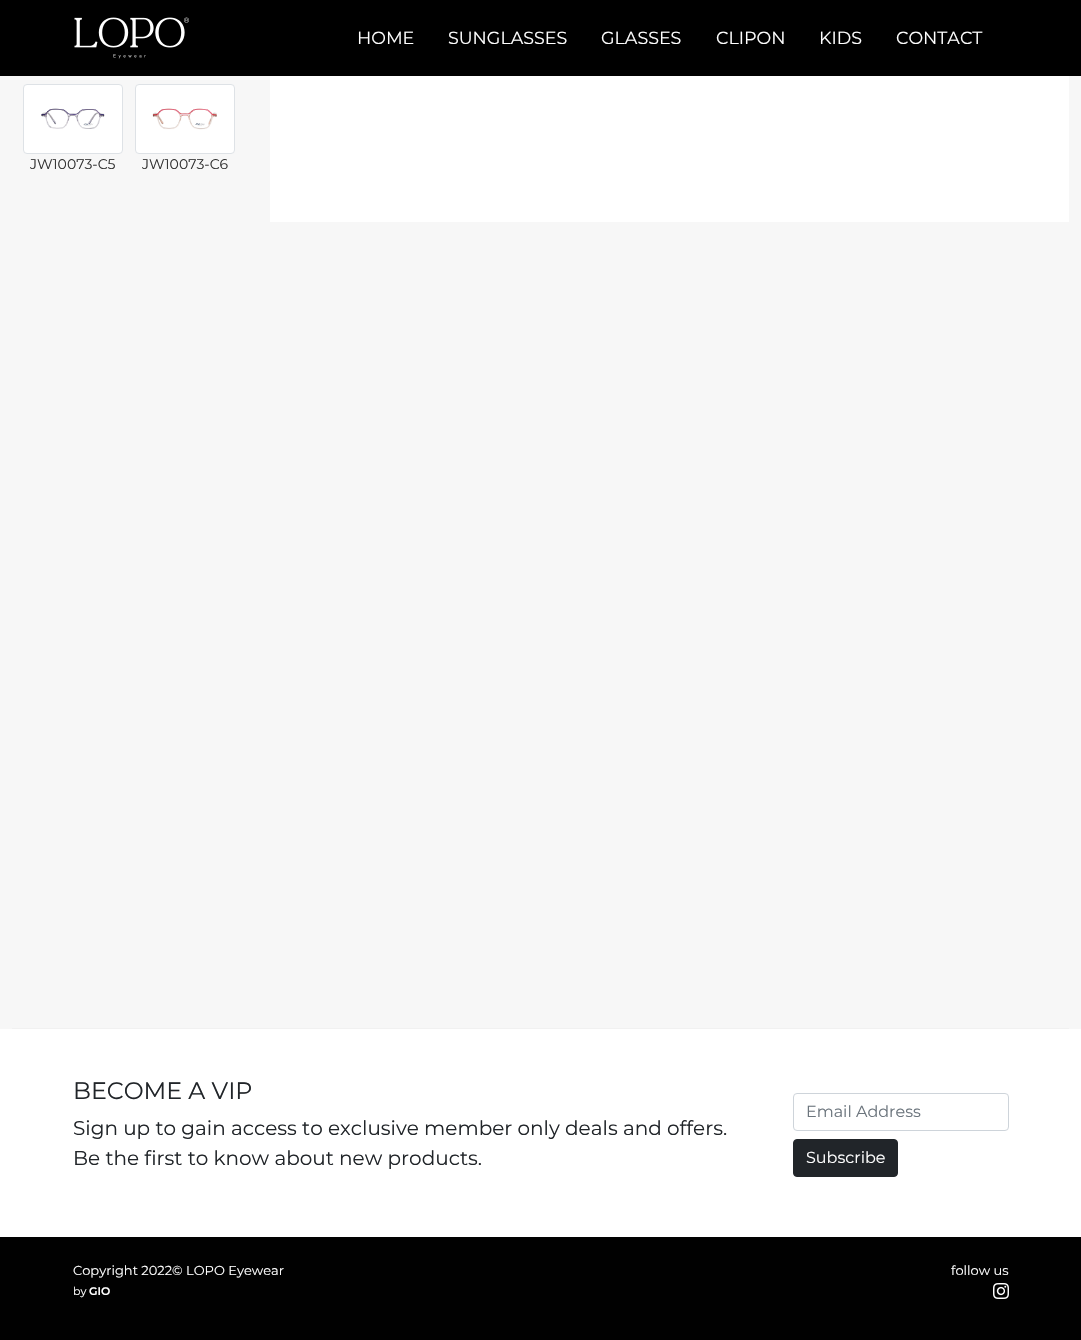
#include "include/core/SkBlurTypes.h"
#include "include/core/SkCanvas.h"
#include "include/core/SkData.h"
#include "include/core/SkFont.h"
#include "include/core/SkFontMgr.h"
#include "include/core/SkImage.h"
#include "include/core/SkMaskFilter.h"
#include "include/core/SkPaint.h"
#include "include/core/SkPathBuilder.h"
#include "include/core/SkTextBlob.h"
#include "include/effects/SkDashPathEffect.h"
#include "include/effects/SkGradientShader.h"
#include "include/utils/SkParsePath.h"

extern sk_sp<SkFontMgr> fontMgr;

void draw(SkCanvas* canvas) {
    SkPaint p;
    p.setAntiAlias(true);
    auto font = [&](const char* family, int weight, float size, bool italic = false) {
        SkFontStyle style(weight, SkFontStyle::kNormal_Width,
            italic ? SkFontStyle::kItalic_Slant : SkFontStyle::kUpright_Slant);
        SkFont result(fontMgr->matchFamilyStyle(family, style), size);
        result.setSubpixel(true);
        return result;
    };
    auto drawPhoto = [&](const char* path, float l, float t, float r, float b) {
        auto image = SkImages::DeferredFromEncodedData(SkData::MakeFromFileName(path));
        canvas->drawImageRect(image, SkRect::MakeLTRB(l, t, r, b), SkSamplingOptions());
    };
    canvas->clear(0xFFFFFFFF);
    p.setColor(0xFF000000);
    canvas->drawRect(SkRect::MakeLTRB(0, 0, 1081, 76), p);
    drawPhoto("media/1.png", 74, 17, 189, 59);
    auto font1 = font("Montserrat", 400, 17.5f);
    p.setColor(0xFFFFFFFF);
    {
        const struct { const char* s; float x, y; } items[] = {
            {"HOME", 357, 44},
            {"SUNGLASSES", 448, 44},
            {"GLASSES", 601, 44},
            {"CLIPON", 716, 44},
            {"KIDS", 819, 44},
            {"CONTACT", 896, 44},
        };
        for (auto [s, x, y] : items) {
            canvas->drawString(s, x, y, font1, p);
        }
    }
    p.setColor(0xFFF7F7F7);
    canvas->drawRect(SkRect::MakeLTRB(0, 76, 1081, 1029), p);
    p.setColor(0xFFFFFFFF);
    canvas->drawRoundRect(SkRect::MakeLTRB(23.5f, 84.5f, 122.5f, 153.5f), 3.5f, 3.5f, p);
    p.setStyle(SkPaint::kStroke_Style);
    p.setStrokeWidth(1);
    p.setColor(0xFFDEE2E6);
    canvas->drawRoundRect(SkRect::MakeLTRB(23.5f, 84.5f, 122.5f, 153.5f), 3.5f, 3.5f, p);
    drawPhoto("media/2.png", 41, 108, 105, 129);
    auto font2 = font("Montserrat", 400, 14);
    p.setStyle(SkPaint::kFill_Style);
    p.setColor(0xFF333333);
    canvas->drawString("JW10073-C5", 30, 169, font2, p);
    p.setColor(0xFFFFFFFF);
    canvas->drawRoundRect(SkRect::MakeLTRB(135.5f, 84.5f, 234.5f, 153.5f), 3.5f, 3.5f, p);
    p.setStyle(SkPaint::kStroke_Style);
    p.setColor(0xFFDEE2E6);
    canvas->drawRoundRect(SkRect::MakeLTRB(135.5f, 84.5f, 234.5f, 153.5f), 3.5f, 3.5f, p);
    drawPhoto("media/3.png", 152, 108, 217, 130);
    p.setStyle(SkPaint::kFill_Style);
    p.setColor(0xFF333333);
    canvas->drawString("JW10073-C6", 142, 169, font2, p);
    drawPhoto("media/4.png", 270, 76, 1069, 222);
    canvas->save();
    canvas->clipRect(SkRect::MakeLTRB(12, 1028, 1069, 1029));
    p.setColor(0x26000000);
    p.setMaskFilter(SkMaskFilter::MakeBlur(kNormal_SkBlurStyle, 8));
    canvas->drawRect(SkRect::MakeLTRB(0, 1037, 1081, 1245), p);
    p.setMaskFilter(nullptr);
    canvas->restore();
    auto font3 = font("Montserrat", 400, 23.75f);
    p.setColor(0xFF212529);
    canvas->drawString("BECOME A VIP", 73, 1099, font3, p);
    auto font4 = font("Montserrat", 400, 20);
    canvas->drawString("Sign up to gain access to exclusive member only deals and offers.", 73, 1135, font4, p);
    canvas->drawString("Be the first to know about new products.", 73, 1165, font4, p);
    p.setStyle(SkPaint::kStroke_Style);
    p.setColor(0xFFCED4DA);
    canvas->drawRoundRect(SkRect::MakeLTRB(793.5f, 1093.5f, 1008.5f, 1130.5f), 3.5f, 3.5f, p);
    auto font5 = font("Montserrat", 400, 16);
    p.setStyle(SkPaint::kFill_Style);
    p.setColor(0xFF6C757D);
    canvas->drawString("Email Address", 806, 1117, font5, p);
    p.setColor(0xFF212529);
    canvas->drawRoundRect(SkRect::MakeLTRB(793.5f, 1139.5f, 897.5f, 1176.5f), 3.5f, 3.5f, p);
    p.setStyle(SkPaint::kStroke_Style);
    canvas->drawRoundRect(SkRect::MakeLTRB(793.5f, 1139.5f, 897.5f, 1176.5f), 3.5f, 3.5f, p);
    p.setStyle(SkPaint::kFill_Style);
    p.setColor(0xFFFFFFFF);
    canvas->drawString("Subscribe", 806, 1163, font5, p);
    p.setColor(0xFF010101);
    canvas->drawRect(SkRect::MakeLTRB(0, 1237, 1081, 1340), p);
    auto font6 = font("Montserrat", 400, 13);
    p.setColor(0xFFFFFFFF);
    canvas->drawString("Copyright 2022© LOPO Eyewear", 73, 1275, font6, p);
    auto font7 = font("Montserrat", 400, 11);
    canvas->drawString("by", 73, 1295, font7, p);
    auto font8 = font("Montserrat", 600, 11);
    canvas->drawString("GIO", 89, 1295, font8, p);
    canvas->drawString("follow us", 951, 1275, font6, p);
    drawPhoto("media/5.png", 993, 1283, 1009, 1299);
}
